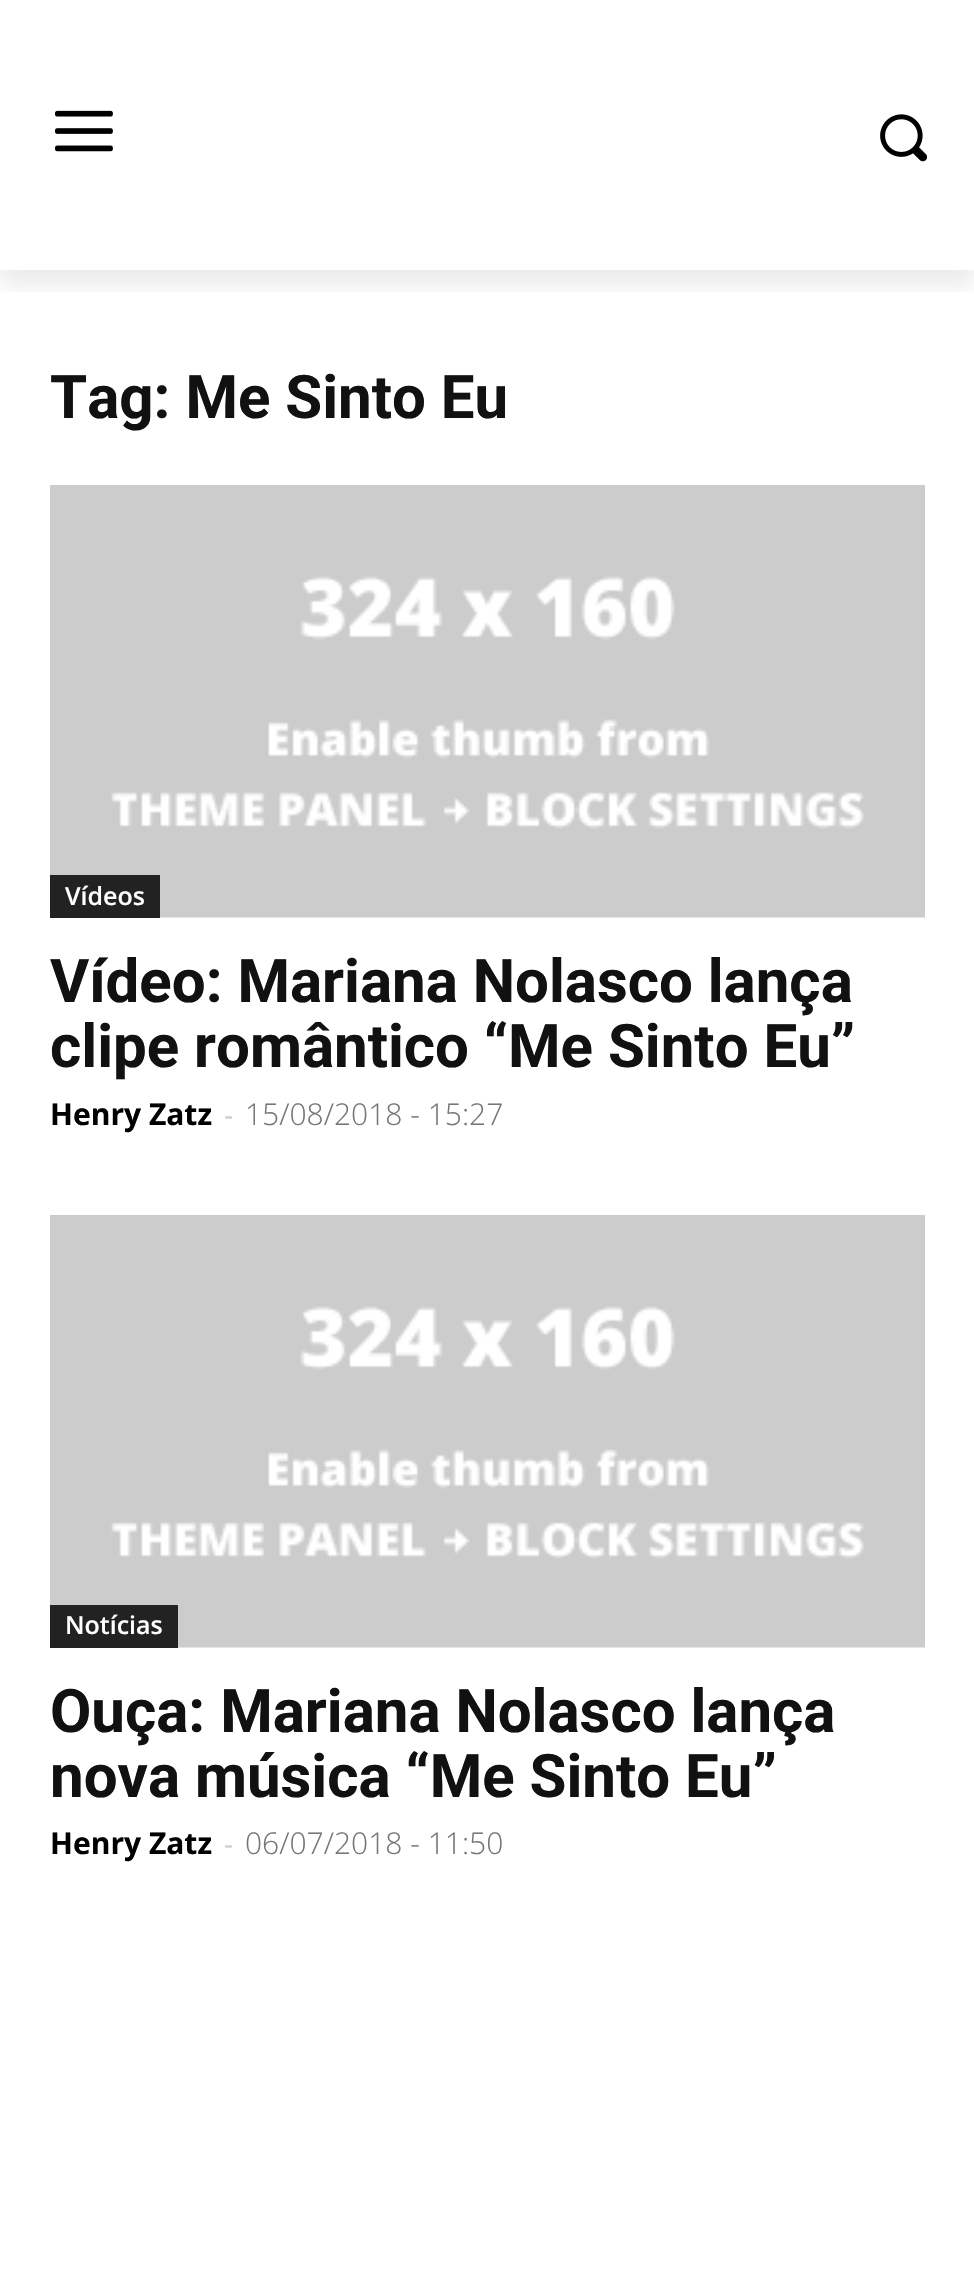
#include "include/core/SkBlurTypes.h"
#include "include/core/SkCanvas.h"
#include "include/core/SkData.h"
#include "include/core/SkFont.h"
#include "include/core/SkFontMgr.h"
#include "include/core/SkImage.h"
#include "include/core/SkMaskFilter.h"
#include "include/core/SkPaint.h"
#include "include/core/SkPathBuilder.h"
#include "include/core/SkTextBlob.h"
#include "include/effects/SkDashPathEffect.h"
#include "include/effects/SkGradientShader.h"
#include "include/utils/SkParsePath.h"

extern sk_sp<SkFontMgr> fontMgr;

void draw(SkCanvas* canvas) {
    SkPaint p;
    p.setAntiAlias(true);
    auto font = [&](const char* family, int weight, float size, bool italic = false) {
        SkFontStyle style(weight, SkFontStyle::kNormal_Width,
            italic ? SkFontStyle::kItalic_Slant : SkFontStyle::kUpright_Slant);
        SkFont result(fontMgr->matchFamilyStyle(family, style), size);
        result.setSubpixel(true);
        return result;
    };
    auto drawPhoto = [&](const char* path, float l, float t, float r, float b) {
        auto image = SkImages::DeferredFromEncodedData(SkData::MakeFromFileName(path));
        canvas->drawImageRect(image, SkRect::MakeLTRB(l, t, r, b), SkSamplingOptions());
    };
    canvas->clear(0xFFFFFFFF);
    drawPhoto("media/1.png", 55, 110, 113, 152);
    drawPhoto("media/2.png", 880, 114, 928, 162);
    canvas->save();
    canvas->clipRect(SkRect::MakeLTRB(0, 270, 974, 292));
    p.setColor(0x14000000);
    p.setMaskFilter(SkMaskFilter::MakeBlur(kNormal_SkBlurStyle, 10));
    canvas->drawRect(SkRect::MakeLTRB(0, 15, 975, 285), p);
    p.setMaskFilter(nullptr);
    canvas->restore();
    auto font1 = font("Roboto", 700, 60);
    p.setColor(0xFF111111);
    canvas->drawString("Tag: Me Sinto Eu", 50, 418, font1, p);
    drawPhoto("media/3.png", 50, 485, 925, 918);
    p.setColor(0xFF222222);
    canvas->drawRect(SkRect::MakeLTRB(50, 875, 160, 918), p);
    auto font2 = font("Open Sans", 600, 25);
    p.setColor(0xFFFFFFFF);
    canvas->drawString("Vídeos", 65, 905, font2, p);
    p.setColor(0xFF111111);
    canvas->drawString("Vídeo: Mariana Nolasco lança", 50, 1002, font1, p);
    canvas->drawString("clipe romântico “Me Sinto Eu”", 50, 1067, font1, p);
    auto font3 = font("Open Sans", 700, 30);
    p.setColor(0xFF000000);
    canvas->drawString("Henry Zatz", 50, 1125, font3, p);
    auto font4 = font("Open Sans", 400, 28);
    p.setColor(0xFFCCCCCC);
    canvas->drawString("-", 224, 1125, font4, p);
    auto font5 = font("Open Sans", 300, 30);
    p.setColor(0xFF767676);
    canvas->drawString("15/08/2018 - 15:27", 245, 1125, font5, p);
    drawPhoto("media/3.png", 50, 1215, 925, 1648);
    p.setColor(0xFF222222);
    canvas->drawRect(SkRect::MakeLTRB(50, 1605, 178, 1648), p);
    p.setColor(0xFFFFFFFF);
    canvas->drawString("Notícias", 65, 1634, font2, p);
    p.setColor(0xFF111111);
    canvas->drawString("Ouça: Mariana Nolasco lança", 50, 1732, font1, p);
    canvas->drawString("nova música “Me Sinto Eu”", 50, 1797, font1, p);
    p.setColor(0xFF000000);
    canvas->drawString("Henry Zatz", 50, 1854, font3, p);
    p.setColor(0xFFCCCCCC);
    canvas->drawString("-", 224, 1854, font4, p);
    p.setColor(0xFF767676);
    canvas->drawString("06/07/2018 - 11:50", 245, 1854, font5, p);
}
